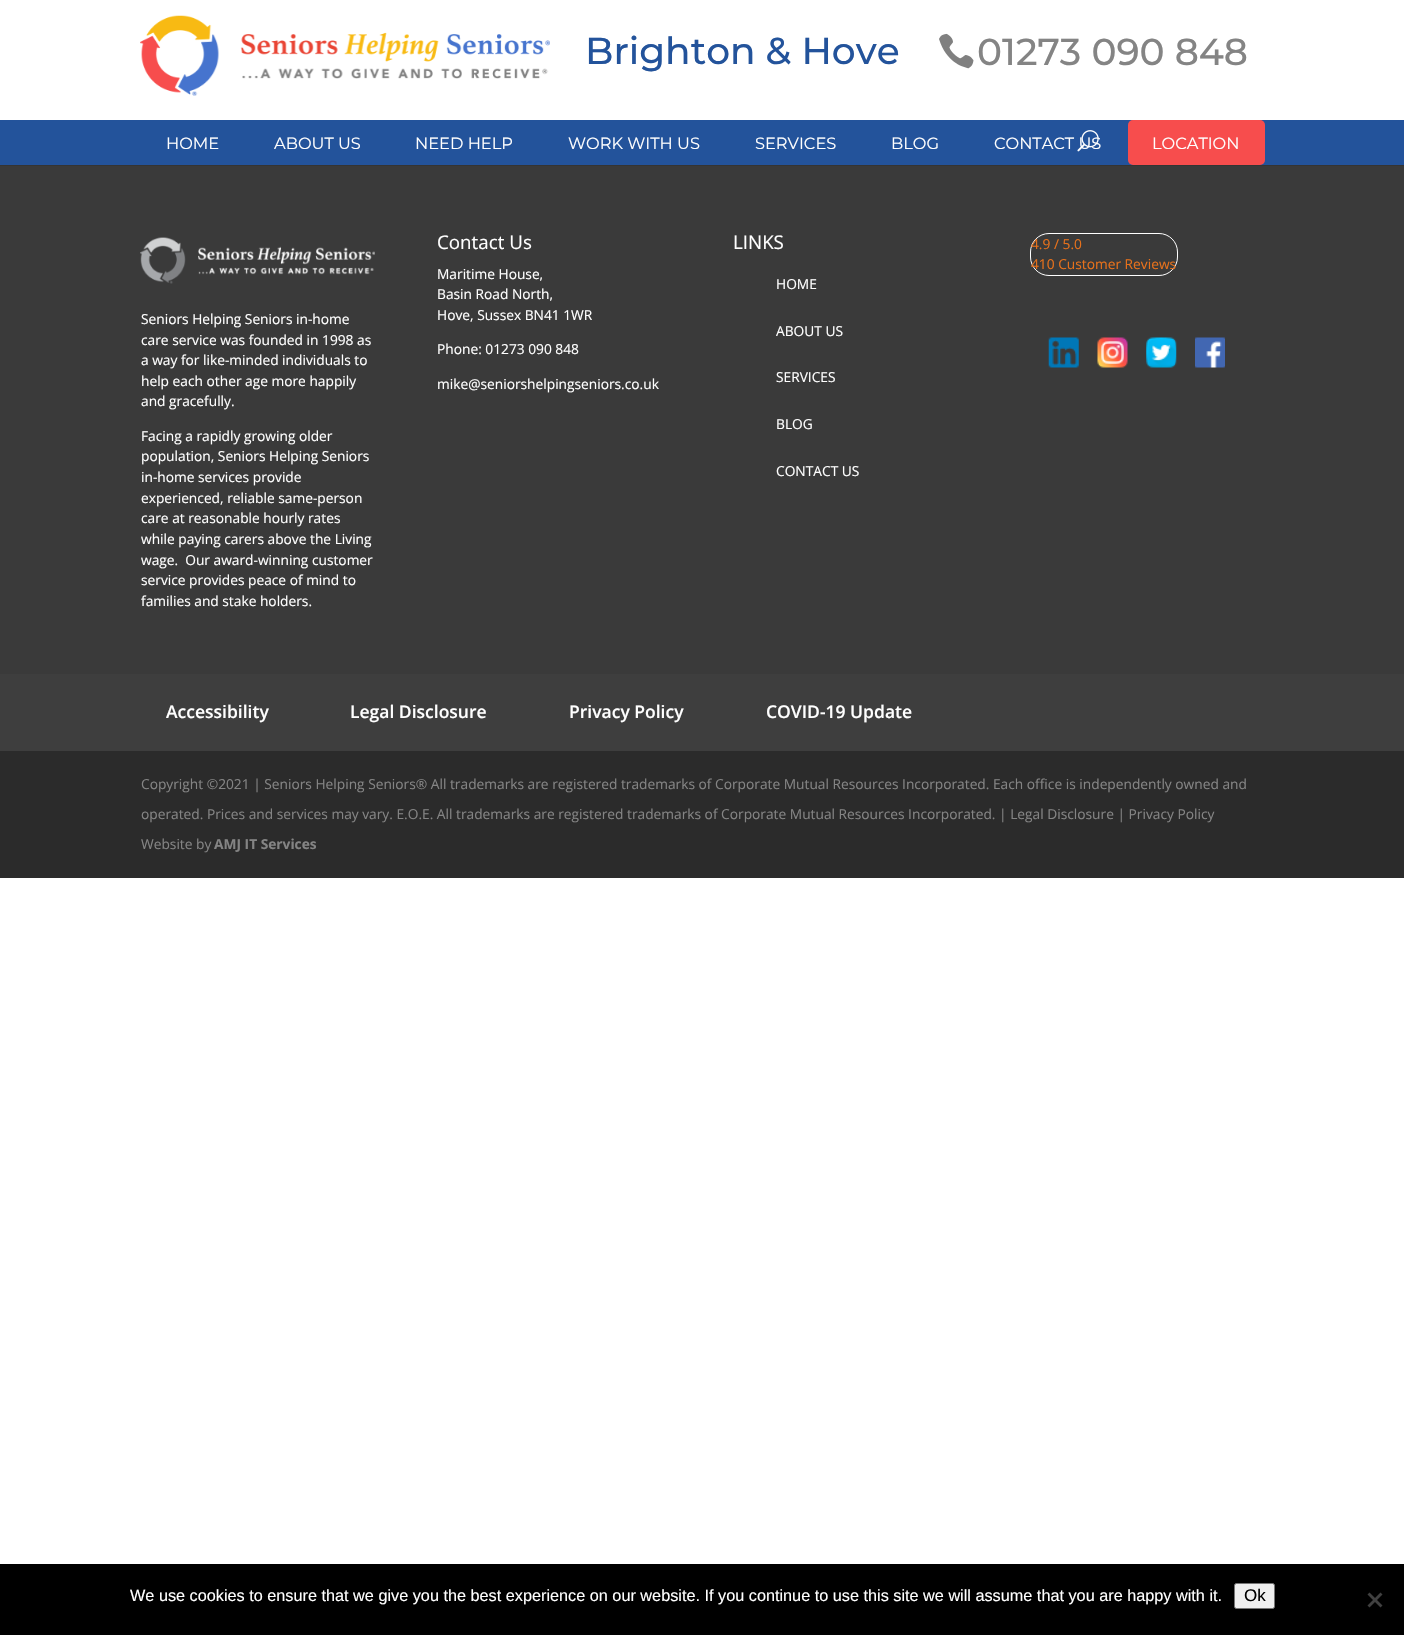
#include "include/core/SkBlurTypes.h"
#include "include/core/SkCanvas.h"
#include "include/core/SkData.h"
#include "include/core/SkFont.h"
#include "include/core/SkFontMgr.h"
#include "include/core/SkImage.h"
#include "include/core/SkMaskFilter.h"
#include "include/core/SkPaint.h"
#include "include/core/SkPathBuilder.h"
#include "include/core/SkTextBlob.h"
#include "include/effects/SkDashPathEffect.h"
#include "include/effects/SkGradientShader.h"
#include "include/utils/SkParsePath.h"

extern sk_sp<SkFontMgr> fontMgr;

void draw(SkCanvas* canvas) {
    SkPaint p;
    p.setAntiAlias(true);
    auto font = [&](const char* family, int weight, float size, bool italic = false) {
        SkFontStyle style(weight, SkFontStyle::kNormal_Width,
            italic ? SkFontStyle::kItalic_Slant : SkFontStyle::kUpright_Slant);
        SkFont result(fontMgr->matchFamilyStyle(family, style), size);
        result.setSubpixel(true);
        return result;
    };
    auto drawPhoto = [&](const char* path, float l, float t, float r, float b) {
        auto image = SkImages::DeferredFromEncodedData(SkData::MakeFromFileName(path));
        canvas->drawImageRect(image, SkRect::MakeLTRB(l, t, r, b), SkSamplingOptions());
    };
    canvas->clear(0xFFFFFFFF);
    p.setColor(0xFF343434);
    canvas->drawRect(SkRect::MakeLTRB(0, 165, 1404, 166), p);
    p.setColor(0xFF23539B);
    canvas->drawRect(SkRect::MakeLTRB(0, 120, 1404, 165), p);
    drawPhoto("media/1.png", 140, 15, 550, 96);
    auto font1 = font("Montserrat", 100, 37.5f);
    canvas->drawString("Brighton & Hove", 585, 64, font1, p);
    drawPhoto("media/2.png", 939, 33, 974, 69);
    p.setColor(0xFF848484);
    canvas->drawString("01273 090 848", 977, 65, font1, p);
    auto font2 = font("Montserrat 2", 100, 16.25f);
    p.setColor(0xFFFFFFFF);
    canvas->drawString("CONTACT US", 994, 149, font2, p);
    drawPhoto("media/3.png", 1077, 130, 1099, 152);
    {
        const struct { const char* s; float x, y; } items[] = {
            {"HOME", 166, 149},
            {"ABOUT US", 274, 149},
            {"NEED HELP", 415, 149},
            {"WORK WITH US", 568, 149},
            {"SERVICES", 755, 149},
            {"BLOG", 891, 149},
        };
        for (auto [s, x, y] : items) {
            canvas->drawString(s, x, y, font2, p);
        }
    }
    p.setColor(0xFFF74D4D);
    canvas->drawRoundRect(SkRect::MakeLTRB(1128, 120, 1265, 165), 5, 5, p);
    p.setColor(0xFFFFFFFF);
    canvas->drawString("LOCATION", 1152, 149, font2, p);
    p.setColor(0xFF3A3A3A);
    canvas->drawRect(SkRect::MakeLTRB(0, 166, 1404, 674), p);
    auto font3 = font("Open Sans", 400, 18.75f);
    p.setColor(0xFFFFFFFF);
    canvas->drawString("Contact Us", 437, 249, font3, p);
    auto font4 = font("Open Sans", 400, 13.75f);
    {
        const struct { const char* s; float x, y; } items[] = {
            {"Maritime House,", 437, 279},
            {"Basin Road North,", 437, 299},
            {"Hove, Sussex BN41 1WR", 437, 320},
            {"Phone: 01273 090 848", 437, 354},
            {"mike@seniorshelpingseniors.co.uk", 437, 389},
        };
        for (auto [s, x, y] : items) {
            canvas->drawString(s, x, y, font4, p);
        }
    }
    canvas->drawString("LINKS", 733, 249, font3, p);
    {
        const struct { const char* s; float x, y; } items[] = {
            {"HOME", 776, 289},
            {"ABOUT US", 776, 336},
            {"SERVICES", 776, 382},
            {"BLOG", 776, 429},
            {"CONTACT US", 776, 476},
        };
        for (auto [s, x, y] : items) {
            canvas->drawString(s, x, y, font4, p);
        }
    }
    p.setStyle(SkPaint::kStroke_Style);
    p.setStrokeWidth(1);
    canvas->drawRoundRect(SkRect::MakeLTRB(1030.5f, 233.5f, 1177.5f, 275.5f), 18.5f, 18.5f, p);
    p.setStyle(SkPaint::kFill_Style);
    p.setColor(0xFFE7711B);
    canvas->drawString("4.9 / 5.0", 1031, 249, font4, p);
    canvas->drawString("410 Customer Reviews", 1031, 269, font4, p);
    drawPhoto("media/4.png", 1048, 337, 1079, 368);
    drawPhoto("media/5.png", 1097, 337, 1128, 368);
    drawPhoto("media/6.png", 1146, 337, 1177, 368);
    drawPhoto("media/7.png", 1195, 337, 1225, 368);
    drawPhoto("media/8.png", 140, 237, 375, 284);
    p.setColor(0xFFFFFFFF);
    {
        const struct { const char* s; float x, y; } items[] = {
            {"Seniors Helping Seniors in-home", 141, 324},
            {"care service was founded in 1998 as", 141, 345},
            {"a way for like-minded individuals to", 141, 365},
            {"help each other age more happily", 141, 386},
            {"and gracefully.", 141, 406},
            {"Facing a rapidly growing older", 141, 441},
            {"population, Seniors Helping Seniors", 141, 461},
            {"in-home services provide", 141, 482},
            {"experienced, reliable same-person", 141, 503},
            {"care at reasonable hourly rates", 141, 523},
            {"while paying carers above the Living", 141, 544},
            {"wage.  Our award-winning customer", 141, 565},
            {"service provides peace of mind to", 141, 585},
            {"families and stake holders.", 141, 606},
        };
        for (auto [s, x, y] : items) {
            canvas->drawString(s, x, y, font4, p);
        }
    }
    p.setColor(0xFF3E3E3E);
    canvas->drawRect(SkRect::MakeLTRB(0, 674, 1404, 751), p);
    auto font5 = font("Open Sans", 600, 17.5f);
    p.setColor(0xFFFFFFFF);
    {
        const struct { const char* s; float x, y; } items[] = {
            {"Accessibility", 166, 718},
            {"Legal Disclosure", 350, 718},
            {"Privacy Policy", 569, 718},
            {"COVID-19 Update", 766, 718},
        };
        for (auto [s, x, y] : items) {
            canvas->drawString(s, x, y, font5, p);
        }
    }
    p.setColor(0xFF2B2B2B);
    canvas->drawRect(SkRect::MakeLTRB(0, 751, 1404, 878), p);
    p.setColor(0xFF848484);
    {
        const struct { const char* s; float x, y; } items[] = {
            {"Copyright ©2021 | Seniors Helping Seniors® All trademarks are registered trademarks of Corporate Mutual Resources Incorporated. Each office is independently owned and", 141, 789},
            {"operated. Prices and services may vary. E.O.E. All trademarks are registered trademarks of Corporate Mutual Resources Incorporated. | Legal Disclosure | Privacy Policy", 141, 819},
            {"Website by", 141, 849},
        };
        for (auto [s, x, y] : items) {
            canvas->drawString(s, x, y, font4, p);
        }
    }
    auto font6 = font("Open Sans", 700, 13.75f);
    canvas->drawString("AMJ IT Services", 214, 849, font6, p);
    p.setColor(0xFF000000);
    canvas->drawRect(SkRect::MakeLTRB(0, 1564, 1404, 1635), p);
    auto font7 = font("Liberation Sans", 400, 16.25f);
    p.setColor(0xFFFFFFFF);
    canvas->drawString("We use cookies to ensure that we give you the best experience on our website. If you continue to use this site we will assume that you are happy with it.", 130, 1601, font7, p);
    p.setColor(0xFFEFEFEF);
    canvas->drawRoundRect(SkRect::MakeLTRB(1234.5f, 1583.5f, 1274.5f, 1608.5f), 2, 2, p);
    p.setStyle(SkPaint::kStroke_Style);
    p.setColor(0xFF767676);
    canvas->drawRoundRect(SkRect::MakeLTRB(1234.5f, 1583.5f, 1274.5f, 1608.5f), 2, 2, p);
    auto font8 = font("Liberation Sans", 400, 17);
    p.setStyle(SkPaint::kFill_Style);
    p.setColor(0xFF000000);
    canvas->drawString("Ok", 1244, 1601, font8, p);
    p.setColor(0xFF404040);
    canvas->drawPath(SkPathBuilder().moveTo(1380.5f, 1592.5f).lineTo(1382.5f, 1594.5f).lineTo(1369.5f, 1607.5f).lineTo(1367.5f, 1605.5f).close().detach(), p);
    canvas->drawPath(SkPathBuilder().moveTo(1367.5f, 1594.5f).lineTo(1369.5f, 1592.5f).lineTo(1382.5f, 1605.5f).lineTo(1380.5f, 1607.5f).close().detach(), p);
}
